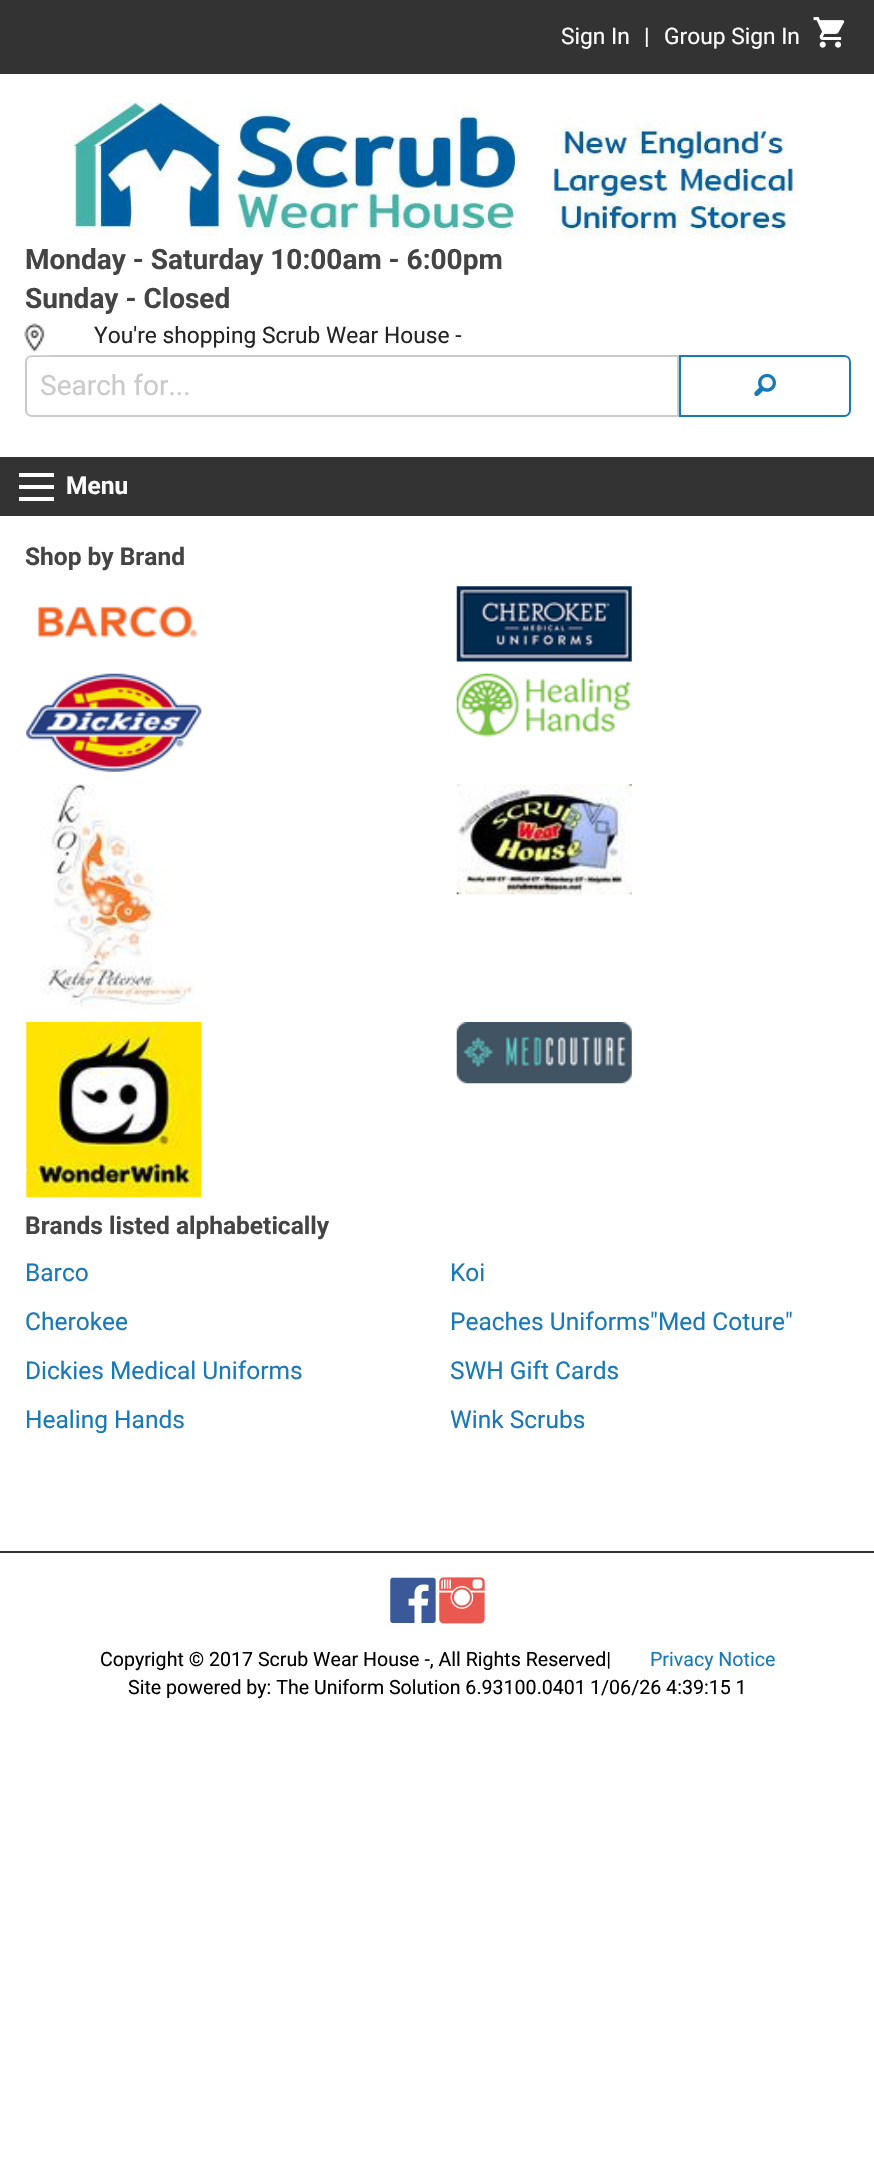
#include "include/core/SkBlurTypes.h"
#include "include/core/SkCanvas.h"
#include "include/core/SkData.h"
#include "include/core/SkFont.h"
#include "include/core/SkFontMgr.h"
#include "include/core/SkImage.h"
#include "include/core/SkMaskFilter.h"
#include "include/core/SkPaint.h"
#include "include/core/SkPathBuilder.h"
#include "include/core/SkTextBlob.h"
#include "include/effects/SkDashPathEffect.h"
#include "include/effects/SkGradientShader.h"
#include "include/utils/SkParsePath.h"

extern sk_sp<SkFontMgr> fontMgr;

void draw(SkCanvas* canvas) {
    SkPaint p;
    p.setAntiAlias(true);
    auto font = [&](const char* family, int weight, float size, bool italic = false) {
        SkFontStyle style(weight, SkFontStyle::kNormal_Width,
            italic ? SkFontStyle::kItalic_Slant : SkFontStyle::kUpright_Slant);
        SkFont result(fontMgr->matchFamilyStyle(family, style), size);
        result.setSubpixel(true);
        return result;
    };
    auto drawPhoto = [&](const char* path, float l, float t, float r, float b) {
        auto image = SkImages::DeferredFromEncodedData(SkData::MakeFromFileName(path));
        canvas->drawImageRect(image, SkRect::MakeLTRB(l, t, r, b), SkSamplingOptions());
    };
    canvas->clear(0xFFFFFFFF);
    p.setColor(0xFF333333);
    canvas->drawRect(SkRect::MakeLTRB(0, 0, 874, 74), p);
    auto font1 = font("Roboto", 400, 22.75f);
    p.setColor(0xFFFFFFFF);
    {
        const struct { const char* s; float x, y; } items[] = {
            {"Sign In", 561, 44},
            {"|", 644, 44},
            {"Group Sign In", 664, 44},
        };
        for (auto [s, x, y] : items) {
            canvas->drawString(s, x, y, font1, p);
        }
    }
    drawPhoto("media/1.png", 813, 17, 845, 48);
    drawPhoto("media/2.png", 73, 102, 799, 236);
    auto font2 = font("Roboto", 700, 28);
    p.setColor(0xFF444444);
    canvas->drawString("Monday - Saturday 10:00am - 6:00pm", 25, 269, font2, p);
    canvas->drawString("Sunday - Closed", 25, 308, font2, p);
    p.setStyle(SkPaint::kStroke_Style);
    p.setStrokeWidth(2);
    p.setColor(0xFFCACACA);
    canvas->drawPath(SkPathBuilder().moveTo(32, 356).lineTo(678, 356).lineTo(678, 416).lineTo(32, 416).cubicTo(28.5f, 416, 26, 413.5f, 26, 410).lineTo(26, 362).cubicTo(26, 358.5f, 28.5f, 356, 32, 356).close().detach(), p);
    drawPhoto("media/3.png", 24, 323, 51, 356);
    p.setStyle(SkPaint::kFill_Style);
    p.setColor(0xFF232323);
    canvas->drawString("You're shopping Scrub Wear House -", 94, 343, font1, p);
    auto font3 = font("Roboto", 400, 28);
    p.setColor(0xFFCACACA);
    canvas->drawString("Search for...", 40, 395, font3, p);
    p.setStyle(SkPaint::kStroke_Style);
    p.setColor(0xFF1779BA);
    canvas->drawPath(SkPathBuilder().moveTo(680, 356).lineTo(844, 356).cubicTo(847.5f, 356, 850, 358.5f, 850, 362).lineTo(850, 410).cubicTo(850, 413.5f, 847.5f, 416, 844, 416).lineTo(680, 416).close().detach(), p);
    drawPhoto("media/4.png", 754, 373, 776, 397);
    p.setStyle(SkPaint::kFill_Style);
    {
        const struct { float l, t, r, b; SkColor color; } items[] = {
            {0, 457, 874, 516, 0xFF333333},
            {19, 497, 54, 501, 0xFFFEFEFE},
            {19, 485, 54, 489, 0xFFFEFEFE},
            {19, 473, 54, 477, 0xFFFEFEFE},
        };
        for (auto [l, t, r, b, color] : items) {
            p.setColor(color);
            canvas->drawRect(SkRect::MakeLTRB(l, t, r, b), p);
        }
    }
    auto font4 = font("Roboto", 700, 24.5f);
    p.setColor(0xFFFFFFFF);
    canvas->drawString("Menu", 66, 494, font4, p);
    p.setColor(0xFF444444);
    canvas->drawString("Shop by Brand", 25, 565, font4, p);
    drawPhoto("media/5.png", 38, 605, 198, 638);
    drawPhoto("media/6.png", 456, 586, 632, 662);
    drawPhoto("media/7.png", 26, 673, 202, 772);
    drawPhoto("media/8.png", 456, 673, 631, 737);
    drawPhoto("media/9.png", 40, 784, 194, 1008);
    drawPhoto("media/10.png", 456, 784, 632, 895);
    drawPhoto("media/11.png", 26, 1022, 202, 1197);
    drawPhoto("media/12.png", 456, 1022, 632, 1084);
    canvas->drawString("Brands listed alphabetically", 25, 1234, font4, p);
    auto font5 = font("Roboto", 400, 24.5f);
    p.setColor(0xFF1779BA);
    {
        const struct { const char* s; float x, y; } items[] = {
            {"Barco", 25, 1281},
            {"Koi", 450, 1281},
            {"Cherokee", 25, 1330},
            {"Peaches Uniforms\"Med Coture\"", 450, 1330},
            {"Dickies Medical Uniforms", 25, 1379},
            {"SWH Gift Cards", 450, 1379},
            {"Healing Hands", 25, 1428},
            {"Wink Scrubs", 450, 1428},
        };
        for (auto [s, x, y] : items) {
            canvas->drawString(s, x, y, font5, p);
        }
    }
    p.setColor(0xFF333333);
    canvas->drawRect(SkRect::MakeLTRB(0, 1551, 874, 1553), p);
    drawPhoto("media/13.png", 390, 1577, 436, 1623);
    drawPhoto("media/14.png", 439, 1577, 485, 1624);
    auto font6 = font("Roboto", 400, 19.6f);
    p.setColor(0xFF000000);
    canvas->drawString("Copyright © 2017 Scrub Wear House -, All Rights Reserved |", 100, 1666, font6, p);
    p.setColor(0xFF1779BA);
    canvas->drawString("Privacy Notice", 650, 1666, font6, p);
    p.setColor(0xFF000000);
    canvas->drawString("Site powered by: The Uniform Solution 6.93100.0401", 128, 1694, font6, p);
    canvas->drawString("1/06/26 4:39:15 1", 590, 1694, font6, p);
}
